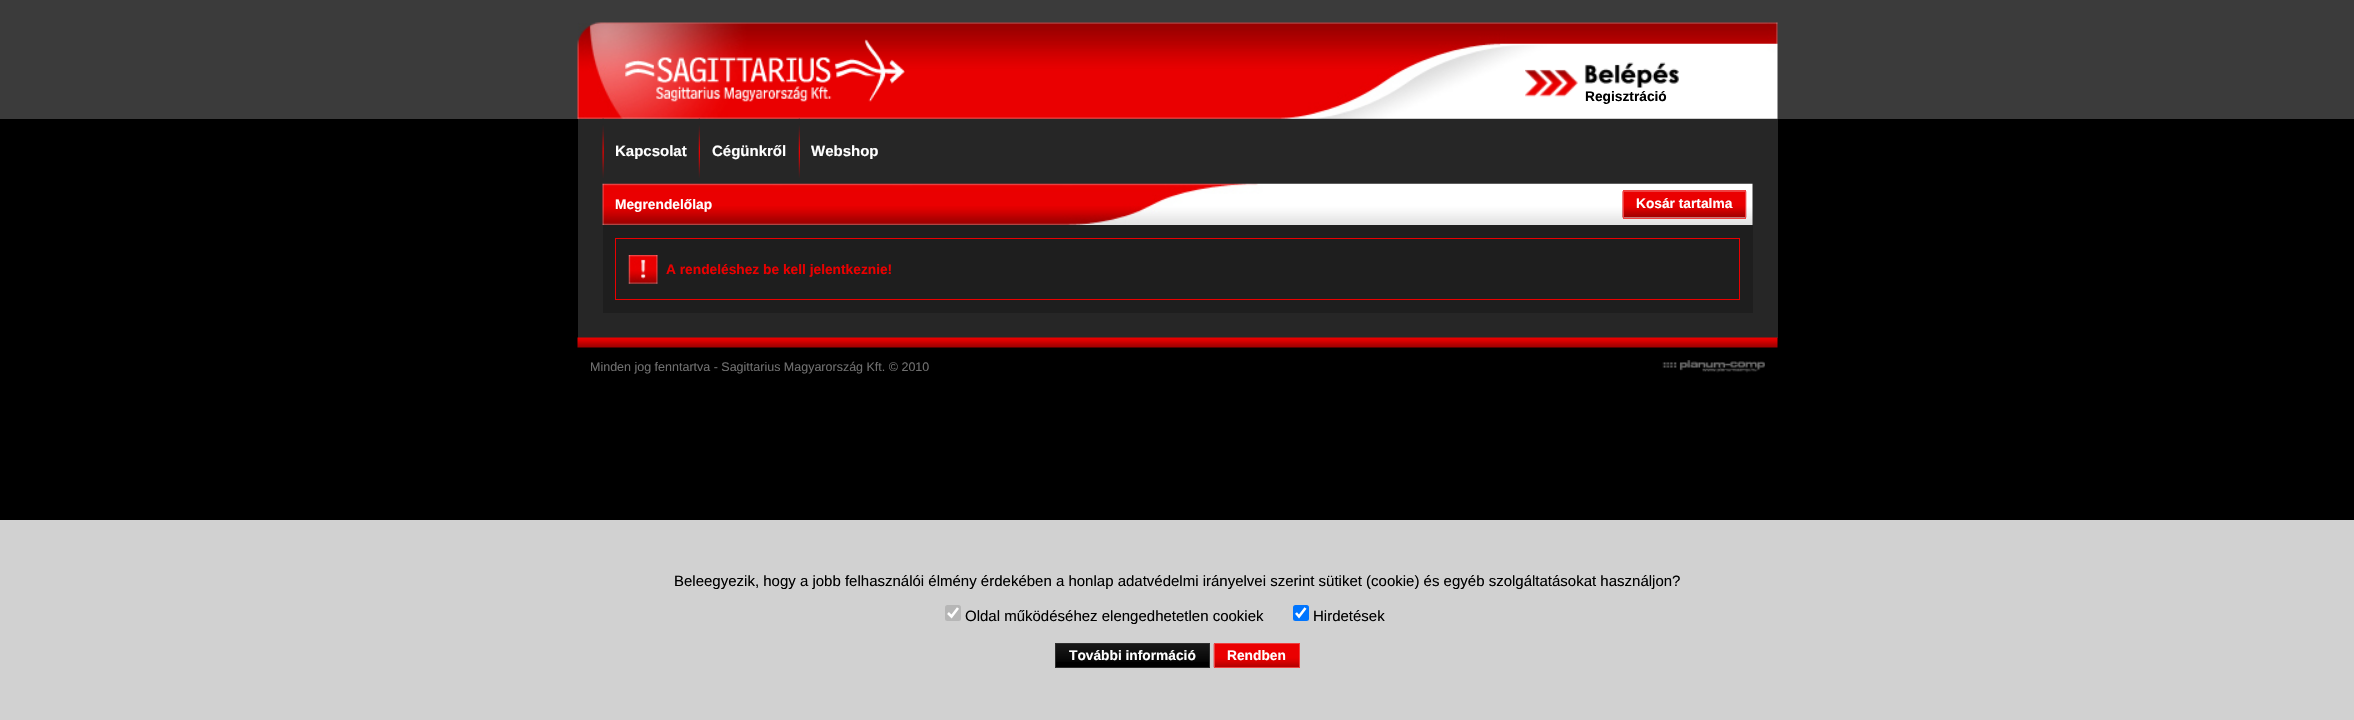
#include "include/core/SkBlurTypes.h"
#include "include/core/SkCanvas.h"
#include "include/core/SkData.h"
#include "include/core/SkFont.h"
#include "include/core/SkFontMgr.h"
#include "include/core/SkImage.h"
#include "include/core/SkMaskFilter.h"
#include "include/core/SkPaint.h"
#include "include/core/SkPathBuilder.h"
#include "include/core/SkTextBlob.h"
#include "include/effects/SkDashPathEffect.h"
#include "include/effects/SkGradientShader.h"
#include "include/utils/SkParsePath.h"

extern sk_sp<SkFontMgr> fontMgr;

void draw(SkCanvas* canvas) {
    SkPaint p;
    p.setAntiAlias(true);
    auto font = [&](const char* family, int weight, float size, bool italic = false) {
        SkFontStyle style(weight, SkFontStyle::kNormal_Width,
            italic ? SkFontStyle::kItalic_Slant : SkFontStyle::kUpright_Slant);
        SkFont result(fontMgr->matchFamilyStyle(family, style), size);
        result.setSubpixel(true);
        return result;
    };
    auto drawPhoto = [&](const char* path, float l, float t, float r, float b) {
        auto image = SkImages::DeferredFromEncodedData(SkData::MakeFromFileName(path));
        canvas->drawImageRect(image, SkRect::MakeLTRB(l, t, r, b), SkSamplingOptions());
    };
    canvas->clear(0xFF000000);
    p.setColor(0xFF3B3B3B);
    canvas->drawRect(SkRect::MakeLTRB(0, 0, 2354, 119), p);
    drawPhoto("media/1.png", 577, 22, 1778, 119);
    drawPhoto("media/2.png", 625, 39, 905, 102);
    drawPhoto("media/3.png", 1525, 62, 1679, 97);
    auto font1 = font("Liberation Sans", 700, 13.75f);
    p.setColor(0xFF000000);
    canvas->drawString("Regisztráció", 1585, 101, font1, p);
    p.setColor(0xFF262626);
    canvas->drawRect(SkRect::MakeLTRB(578, 119, 1778, 338), p);
    drawPhoto("media/4.png", 602, 118, 604, 178);
    auto font2 = font("Liberation Sans", 700, 15);
    p.setColor(0xFFFFFFFF);
    canvas->drawString("Kapcsolat", 615, 156, font2, p);
    drawPhoto("media/5.png", 698, 118, 700, 178);
    canvas->drawString("Cégünkről", 712, 156, font2, p);
    drawPhoto("media/6.png", 798, 118, 800, 178);
    canvas->drawString("Webshop", 811, 156, font2, p);
    drawPhoto("media/7.png", 602, 183, 1753, 225);
    canvas->drawString("Megrendelőlap", 615, 209, font1, p);
    drawPhoto("media/8.png", 1622, 191, 1747, 218);
    p.setStyle(SkPaint::kStroke_Style);
    p.setStrokeWidth(1);
    p.setColor(0xFFEF4040);
    canvas->drawRect(SkRect::MakeLTRB(1623.5f, 190.5f, 1745.5f, 218.5f), p);
    p.setStyle(SkPaint::kFill_Style);
    p.setColor(0xFFFFFFFF);
    canvas->drawString("Kosár tartalma", 1636, 208, font1, p);
    p.setColor(0xFF1E1E1E);
    canvas->drawRect(SkRect::MakeLTRB(603, 225, 1753, 313), p);
    p.setStyle(SkPaint::kStroke_Style);
    p.setColor(0xFFEA0000);
    canvas->drawRect(SkRect::MakeLTRB(615.5f, 238.5f, 1739.5f, 299.5f), p);
    drawPhoto("media/9.png", 628, 255, 658, 284);
    p.setStyle(SkPaint::kFill_Style);
    canvas->drawString("A rendeléshez be kell jelentkeznie!", 666, 274, font1, p);
    drawPhoto("media/10.png", 577, 337, 1778, 348);
    auto font3 = font("Liberation Sans", 400, 12.5f);
    p.setColor(0xFF6F6F6F);
    canvas->drawString("Minden jog fenntartva - Sagittarius Magyarország Kft. © 2010", 590, 371, font3, p);
    drawPhoto("media/11.png", 1662, 360, 1765, 373);
    p.setColor(0xFFD1D1D1);
    canvas->drawRect(SkRect::MakeLTRB(0, 520, 2354, 720), p);
    auto font4 = font("Liberation Sans", 400, 15);
    p.setColor(0xFF000000);
    canvas->drawString("Beleegyezik, hogy a jobb felhasználói élmény érdekében a honlap adatvédelmi irányelvei szerint sütiket (cookie) és egyéb szolgáltatásokat használjon?", 674, 586, font4, p);
    p.setColor(0xFFB6B6B6);
    canvas->drawRoundRect(SkRect::MakeLTRB(945, 605, 961, 621), 2.5f, 2.5f, p);
    p.setStyle(SkPaint::kStroke_Style);
    p.setStrokeWidth(2.6f);
    p.setColor(0xFFFFFFFF);
    canvas->drawPath(SkPathBuilder().moveTo(948, 613).lineTo(951.5f, 616.5f).lineTo(958, 608).detach(), p);
    p.setStyle(SkPaint::kFill_Style);
    p.setColor(0xFF000000);
    canvas->drawString("Oldal működéséhez elengedhetetlen cookiek", 965, 621, font4, p);
    p.setColor(0xFF0075FF);
    canvas->drawRoundRect(SkRect::MakeLTRB(1293, 605, 1309, 621), 2.5f, 2.5f, p);
    p.setStyle(SkPaint::kStroke_Style);
    p.setColor(0xFFFFFFFF);
    canvas->drawPath(SkPathBuilder().moveTo(1296, 613).lineTo(1299, 616.5f).lineTo(1305.5f, 608).detach(), p);
    p.setStyle(SkPaint::kFill_Style);
    p.setColor(0xFF000000);
    canvas->drawString("Hirdetések", 1313, 621, font4, p);
    canvas->drawRect(SkRect::MakeLTRB(1056, 662, 1209, 667), p);
    drawPhoto("media/12.png", 1056, 644, 1209, 662);
    p.setStyle(SkPaint::kStroke_Style);
    p.setStrokeWidth(1);
    p.setColor(0xFF2E2E2E);
    canvas->drawRect(SkRect::MakeLTRB(1055.5f, 643.5f, 1209.5f, 667.5f), p);
    p.setStyle(SkPaint::kFill_Style);
    p.setColor(0xFFFFFFFF);
    canvas->drawString("További információ", 1069, 660, font1, p);
    drawPhoto("media/13.png", 1213, 643, 1299, 668);
    p.setStyle(SkPaint::kStroke_Style);
    p.setColor(0xFFEF4040);
    canvas->drawRect(SkRect::MakeLTRB(1214.5f, 643.5f, 1299.5f, 667.5f), p);
    p.setStyle(SkPaint::kFill_Style);
    p.setColor(0xFFFFFFFF);
    canvas->drawString("Rendben", 1227, 660, font1, p);
}
